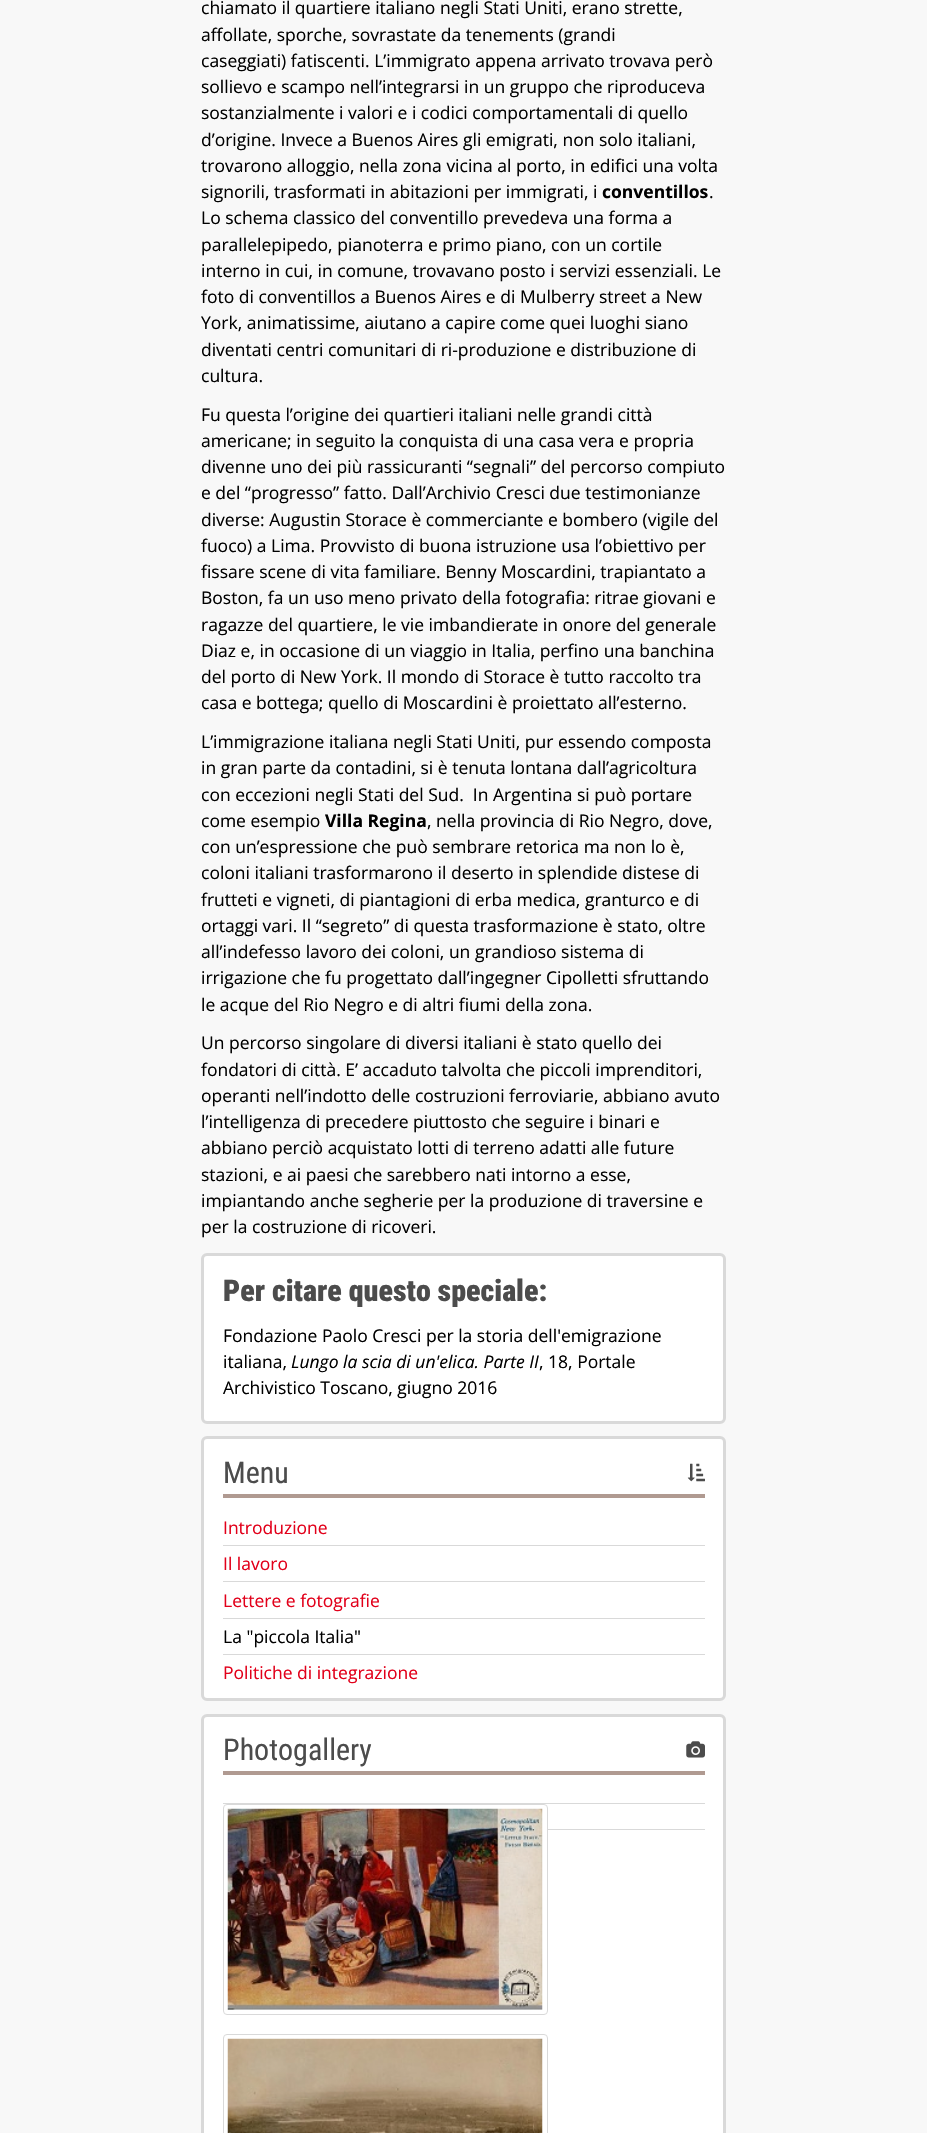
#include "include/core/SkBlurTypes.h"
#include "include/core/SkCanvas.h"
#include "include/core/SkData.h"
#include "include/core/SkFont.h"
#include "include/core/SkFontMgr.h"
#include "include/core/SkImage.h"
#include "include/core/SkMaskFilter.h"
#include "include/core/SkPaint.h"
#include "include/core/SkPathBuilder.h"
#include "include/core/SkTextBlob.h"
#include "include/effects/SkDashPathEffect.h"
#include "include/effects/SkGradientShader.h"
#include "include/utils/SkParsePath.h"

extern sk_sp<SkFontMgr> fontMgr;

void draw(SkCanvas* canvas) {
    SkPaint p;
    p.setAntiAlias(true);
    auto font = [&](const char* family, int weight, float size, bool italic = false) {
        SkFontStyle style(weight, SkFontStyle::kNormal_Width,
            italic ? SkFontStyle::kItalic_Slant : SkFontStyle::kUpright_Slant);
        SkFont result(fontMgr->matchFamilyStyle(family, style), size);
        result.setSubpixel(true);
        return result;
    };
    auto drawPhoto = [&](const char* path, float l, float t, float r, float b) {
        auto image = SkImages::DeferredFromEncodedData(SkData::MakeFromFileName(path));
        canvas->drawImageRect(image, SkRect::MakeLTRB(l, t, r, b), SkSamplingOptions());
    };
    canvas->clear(0xFFF8F8F8);
    auto font1 = font("Open Sans", 400, 17.5f);
    p.setColor(0xFF000000);
    {
        const struct { const char* s; float x, y; } items[] = {
            {"chiamato il quartiere italiano negli Stati Uniti, erano strette,", 201, 14},
            {"affollate, sporche, sovrastate da tenements (grandi", 201, 41},
            {"caseggiati) fatiscenti. L’immigrato appena arrivato trovava però", 201, 67},
            {"sollievo e scampo nell’integrarsi in un gruppo che riproduceva", 201, 93},
            {"sostanzialmente i valori e i codici comportamentali di quello", 201, 119},
            {"d’origine. Invece a Buenos Aires gli emigrati, non solo italiani,", 201, 146},
            {"trovarono alloggio, nella zona vicina al porto, in edifici una volta", 201, 172},
            {"signorili, trasformati in abitazioni per immigrati, i", 201, 198},
        };
        for (auto [s, x, y] : items) {
            canvas->drawString(s, x, y, font1, p);
        }
    }
    auto font2 = font("Open Sans", 700, 17.5f);
    canvas->drawString("conventillos", 602, 198, font2, p);
    {
        const struct { const char* s; float x, y; } items[] = {
            {".", 709, 198},
            {"Lo schema classico del conventillo prevedeva una forma a", 201, 224},
            {"parallelepipedo, pianoterra e primo piano, con un cortile", 201, 251},
            {"interno in cui, in comune, trovavano posto i servizi essenziali. Le", 201, 277},
            {"foto di conventillos a Buenos Aires e di Mulberry street a New", 201, 303},
            {"York, animatissime, aiutano a capire come quei luoghi siano", 201, 329},
            {"diventati centri comunitari di ri-produzione e distribuzione di", 201, 356},
            {"cultura.", 201, 382},
            {"Fu questa l’origine dei quartieri italiani nelle grandi città", 201, 421},
            {"americane; in seguito la conquista di una casa vera e propria", 201, 447},
            {"divenne uno dei più rassicuranti “segnali” del percorso compiuto", 201, 473},
            {"e del “progresso” fatto. Dall’Archivio Cresci due testimonianze", 201, 499},
            {"diverse: Augustin Storace è commerciante e bombero (vigile del", 201, 526},
            {"fuoco) a Lima. Provvisto di buona istruzione usa l’obiettivo per", 201, 552},
            {"fissare scene di vita familiare. Benny Moscardini, trapiantato a", 201, 578},
            {"Boston, fa un uso meno privato della fotografia: ritrae giovani e", 201, 604},
            {"ragazze del quartiere, le vie imbandierate in onore del generale", 201, 631},
            {"Diaz e, in occasione di un viaggio in Italia, perfino una banchina", 201, 657},
            {"del porto di New York. Il mondo di Storace è tutto raccolto tra", 201, 683},
            {"casa e bottega; quello di Moscardini è proiettato all’esterno.", 201, 709},
            {"L’immigrazione italiana negli Stati Uniti, pur essendo composta", 201, 748},
            {"in gran parte da contadini, si è tenuta lontana dall’agricoltura", 201, 774},
            {"con eccezioni negli Stati del Sud.  In Argentina si può portare", 201, 801},
            {"come esempio", 201, 827},
        };
        for (auto [s, x, y] : items) {
            canvas->drawString(s, x, y, font1, p);
        }
    }
    canvas->drawString("Villa Regina", 325, 827, font2, p);
    {
        const struct { const char* s; float x, y; } items[] = {
            {", nella provincia di Rio Negro, dove,", 427, 827},
            {"con un’espressione che può sembrare retorica ma non lo è,", 201, 853},
            {"coloni italiani trasformarono il deserto in splendide distese di", 201, 879},
            {"frutteti e vigneti, di piantagioni di erba medica, granturco e di", 201, 906},
            {"ortaggi vari. Il “segreto” di questa trasformazione è stato, oltre", 201, 932},
            {"all’indefesso lavoro dei coloni, un grandioso sistema di", 201, 958},
            {"irrigazione che fu progettato dall’ingegner Cipolletti sfruttando", 201, 984},
            {"le acque del Rio Negro e di altri fiumi della zona.", 201, 1011},
            {"Un percorso singolare di diversi italiani è stato quello dei", 201, 1049},
            {"fondatori di città. E’ accaduto talvolta che piccoli imprenditori,", 201, 1076},
            {"operanti nell’indotto delle costruzioni ferroviarie, abbiano avuto", 201, 1102},
            {"l’intelligenza di precedere piuttosto che seguire i binari e", 201, 1128},
            {"abbiano perciò acquistato lotti di terreno adatti alle future", 201, 1154},
            {"stazioni, e ai paesi che sarebbero nati intorno a esse,", 201, 1181},
            {"impiantando anche segherie per la produzione di traversine e", 201, 1207},
            {"per la costruzione di ricoveri.", 201, 1233},
        };
        for (auto [s, x, y] : items) {
            canvas->drawString(s, x, y, font1, p);
        }
    }
    p.setColor(0xFFFFFFFF);
    canvas->drawRoundRect(SkRect::MakeLTRB(202.5f, 1254.5f, 724.5f, 1422.5f), 4.5f, 4.5f, p);
    p.setStyle(SkPaint::kStroke_Style);
    p.setStrokeWidth(3);
    p.setColor(0xFFD9D9D9);
    canvas->drawRoundRect(SkRect::MakeLTRB(202.5f, 1254.5f, 724.5f, 1422.5f), 4.5f, 4.5f, p);
    auto font3 = font("Roboto Condensed", 900, 30);
    p.setStyle(SkPaint::kFill_Style);
    p.setColor(0xFF4C4C4C);
    canvas->drawString("Per citare questo speciale:", 223, 1301, font3, p);
    p.setColor(0xFF000000);
    canvas->drawString("Fondazione Paolo Cresci per la storia dell'emigrazione", 223, 1342, font1, p);
    canvas->drawString("italiana,", 223, 1368, font1, p);
    auto font4 = font("Open Sans", 400, 17.5f, true);
    canvas->drawString("Lungo la scia di un'elica. Parte II", 291, 1368, font4, p);
    canvas->drawString(", 18, Portale", 539, 1368, font1, p);
    canvas->drawString("Archivistico Toscano, giugno 2016", 223, 1394, font1, p);
    p.setColor(0xFFFFFFFF);
    canvas->drawRoundRect(SkRect::MakeLTRB(202.5f, 1437.5f, 724.5f, 1699.5f), 4.5f, 4.5f, p);
    p.setStyle(SkPaint::kStroke_Style);
    p.setColor(0xFFD9D9D9);
    canvas->drawRoundRect(SkRect::MakeLTRB(202.5f, 1437.5f, 724.5f, 1699.5f), 4.5f, 4.5f, p);
    p.setStyle(SkPaint::kFill_Style);
    p.setColor(0xFFB09A91);
    canvas->drawRect(SkRect::MakeLTRB(223, 1494, 705, 1498), p);
    auto font5 = font("Roboto Condensed", 400, 30);
    p.setColor(0xFF4C4C4C);
    canvas->drawString("Menu", 223, 1483, font5, p);
    drawPhoto("media/1.png", 687, 1463, 705, 1482);
    p.setColor(0xFFD9D9D9);
    canvas->drawRect(SkRect::MakeLTRB(223, 1545, 705, 1546), p);
    p.setColor(0xFFE2001A);
    canvas->drawString("Introduzione", 223, 1534, font1, p);
    p.setColor(0xFFD9D9D9);
    canvas->drawRect(SkRect::MakeLTRB(223, 1581, 705, 1582), p);
    p.setColor(0xFFE2001A);
    canvas->drawString("Il lavoro", 223, 1570, font1, p);
    p.setColor(0xFFD9D9D9);
    canvas->drawRect(SkRect::MakeLTRB(223, 1618, 705, 1619), p);
    p.setColor(0xFFE2001A);
    canvas->drawString("Lettere e fotografie", 223, 1607, font1, p);
    p.setColor(0xFFD9D9D9);
    canvas->drawRect(SkRect::MakeLTRB(223, 1654, 705, 1655), p);
    p.setColor(0xFF000000);
    canvas->drawString("La \"piccola Italia\"", 223, 1643, font1, p);
    p.setColor(0xFFE2001A);
    canvas->drawString("Politiche di integrazione", 223, 1679, font1, p);
    p.setColor(0xFFFFFFFF);
    canvas->drawRoundRect(SkRect::MakeLTRB(202.5f, 1715.5f, 724.5f, 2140.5f), 4.5f, 4.5f, p);
    p.setStyle(SkPaint::kStroke_Style);
    p.setColor(0xFFD9D9D9);
    canvas->drawRoundRect(SkRect::MakeLTRB(202.5f, 1715.5f, 724.5f, 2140.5f), 4.5f, 4.5f, p);
    p.setStyle(SkPaint::kFill_Style);
    p.setColor(0xFFB09A91);
    canvas->drawRect(SkRect::MakeLTRB(223, 1771, 705, 1775), p);
    p.setColor(0xFF4C4C4C);
    canvas->drawString("Photogallery", 223, 1760, font5, p);
    drawPhoto("media/2.png", 686, 1741, 705, 1758);
    p.setColor(0xFFD9D9D9);
    canvas->drawRect(SkRect::MakeLTRB(223, 1803, 705, 1804), p);
    p.setStyle(SkPaint::kStroke_Style);
    p.setStrokeWidth(1);
    canvas->drawRoundRect(SkRect::MakeLTRB(223.5f, 1804.5f, 547.5f, 2014.5f), 3.5f, 3.5f, p);
    drawPhoto("media/3.png", 227, 1808, 543, 2010);
    p.setStyle(SkPaint::kFill_Style);
    canvas->drawRect(SkRect::MakeLTRB(548, 1829, 705, 1830), p);
    p.setStyle(SkPaint::kStroke_Style);
    canvas->drawRoundRect(SkRect::MakeLTRB(223.5f, 2034.5f, 547.5f, 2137.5f), 3.5f, 3.5f, p);
    drawPhoto("media/4.png", 227, 2038, 543, 2133);
}
